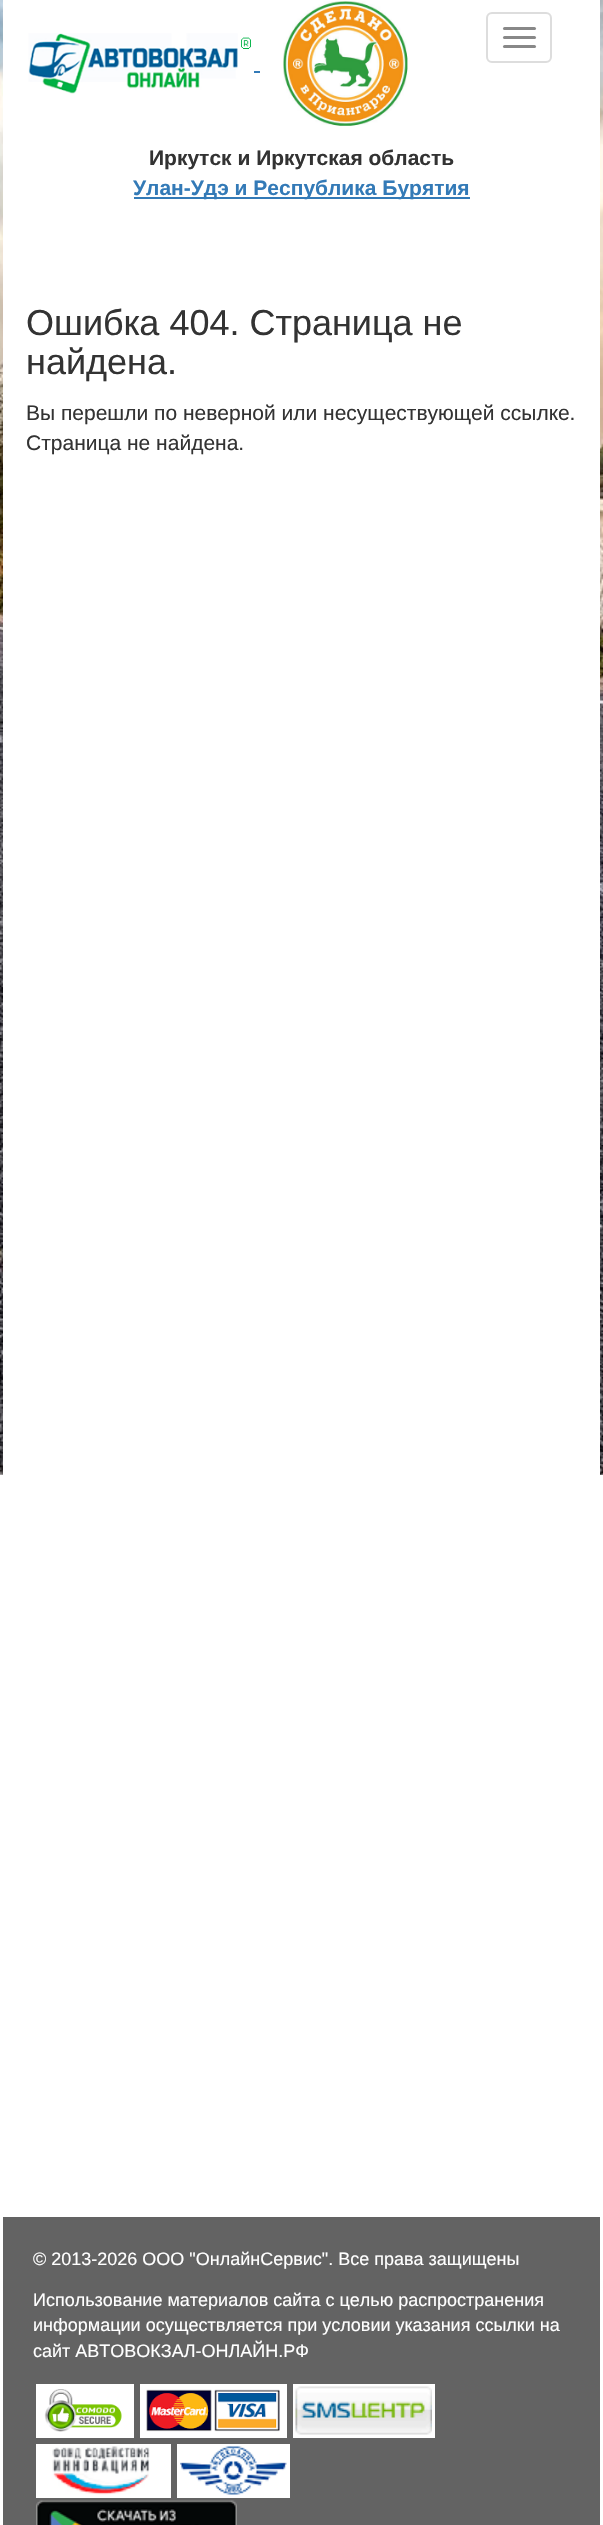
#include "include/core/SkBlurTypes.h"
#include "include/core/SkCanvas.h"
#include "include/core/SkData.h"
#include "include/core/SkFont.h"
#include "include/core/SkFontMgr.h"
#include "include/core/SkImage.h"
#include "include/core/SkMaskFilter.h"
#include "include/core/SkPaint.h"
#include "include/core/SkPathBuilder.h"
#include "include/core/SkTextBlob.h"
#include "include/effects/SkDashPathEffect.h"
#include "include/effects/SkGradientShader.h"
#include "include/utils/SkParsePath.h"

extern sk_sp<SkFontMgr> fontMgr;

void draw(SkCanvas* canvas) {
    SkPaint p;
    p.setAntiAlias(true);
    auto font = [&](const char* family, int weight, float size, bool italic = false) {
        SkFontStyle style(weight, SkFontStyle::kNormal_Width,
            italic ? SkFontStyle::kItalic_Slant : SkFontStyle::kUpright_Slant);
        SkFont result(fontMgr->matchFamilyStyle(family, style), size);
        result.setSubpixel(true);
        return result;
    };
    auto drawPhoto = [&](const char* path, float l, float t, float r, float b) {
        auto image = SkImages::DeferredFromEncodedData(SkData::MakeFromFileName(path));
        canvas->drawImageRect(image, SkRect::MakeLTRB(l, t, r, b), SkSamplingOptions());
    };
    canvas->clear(0xFFFFFFFF);
    drawPhoto("media/1.png", 0, 0, 603, 1475);
    drawPhoto("media/2.png", 0, 1474, 603, 1475);
    p.setColor(0xFFFFFFFF);
    canvas->drawRect(SkRect::MakeLTRB(3, 0, 600, 1475), p);
    drawPhoto("media/3.png", 28, 33, 251, 94);
    p.setColor(0xFF337AB7);
    canvas->drawRect(SkRect::MakeLTRB(254, 71, 260, 73), p);
    drawPhoto("media/4.png", 283, 1, 408, 126);
    p.setStyle(SkPaint::kStroke_Style);
    p.setStrokeWidth(2);
    p.setColor(0xFFDDDDDD);
    canvas->drawRoundRect(SkRect::MakeLTRB(487, 13, 551, 62), 5, 5, p);
    p.setStyle(SkPaint::kFill_Style);
    p.setColor(0xFF888888);
    canvas->drawRoundRect(SkRect::MakeLTRB(503, 27, 536, 30), 1.5f, 1.5f, p);
    canvas->drawRoundRect(SkRect::MakeLTRB(503, 36, 536, 39), 1.5f, 1.5f, p);
    canvas->drawRoundRect(SkRect::MakeLTRB(503, 45, 536, 48), 1.5f, 1.5f, p);
    auto font1 = font("Liberation Sans", 700, 21);
    p.setColor(0xFF333333);
    canvas->drawString("Иркутск и Иркутская область", 149, 165, font1, p);
    p.setColor(0xFF337AB7);
    canvas->drawRect(SkRect::MakeLTRB(134, 197, 470, 199), p);
    canvas->drawString("Улан-Удэ и Республика Бурятия", 133, 195, font1, p);
    auto font2 = font("Liberation Sans", 400, 36);
    p.setColor(0xFF333333);
    canvas->drawString("Ошибка 404. Страница не", 26, 335, font2, p);
    canvas->drawString("найдена.", 26, 374, font2, p);
    auto font3 = font("Liberation Sans", 400, 21);
    canvas->drawString("Вы перешли по неверной или несуществующей ссылке.", 26, 420, font3, p);
    canvas->drawString("Страница не найдена.", 26, 450, font3, p);
    p.setColor(0xFF636363);
    canvas->drawRect(SkRect::MakeLTRB(3, 2217, 600, 2525), p);
    auto font4 = font("Liberation Sans", 400, 18);
    p.setColor(0xFFFFFFFF);
    {
        const struct { const char* s; float x, y; } items[] = {
            {"© 2013-2026 ООО \"ОнлайнСервис\". Все права защищены", 33, 2265},
            {"Использование материалов сайта с целью распространения", 33, 2306},
            {"информации осуществляется при условии указания ссылки на", 33, 2331},
            {"сайт АВТОВОКЗАЛ-ОНЛАЙН.РФ", 33, 2357},
        };
        for (auto [s, x, y] : items) {
            canvas->drawString(s, x, y, font4, p);
        }
    }
    canvas->drawRect(SkRect::MakeLTRB(36, 2384, 134, 2438), p);
    drawPhoto("media/5.png", 44, 2389, 122, 2432);
    canvas->drawRect(SkRect::MakeLTRB(140, 2384, 287, 2438), p);
    drawPhoto("media/6.png", 146, 2389, 280, 2432);
    canvas->drawRect(SkRect::MakeLTRB(293, 2384, 435, 2438), p);
    drawPhoto("media/7.png", 295, 2386, 432, 2435);
    canvas->drawRect(SkRect::MakeLTRB(36, 2444, 171, 2498), p);
    drawPhoto("media/8.png", 52, 2446, 150, 2495);
    canvas->drawRect(SkRect::MakeLTRB(177, 2444, 290, 2498), p);
    drawPhoto("media/9.png", 180, 2446, 287, 2495);
    drawPhoto("media/10.png", 36, 2500, 237, 2525);
}
